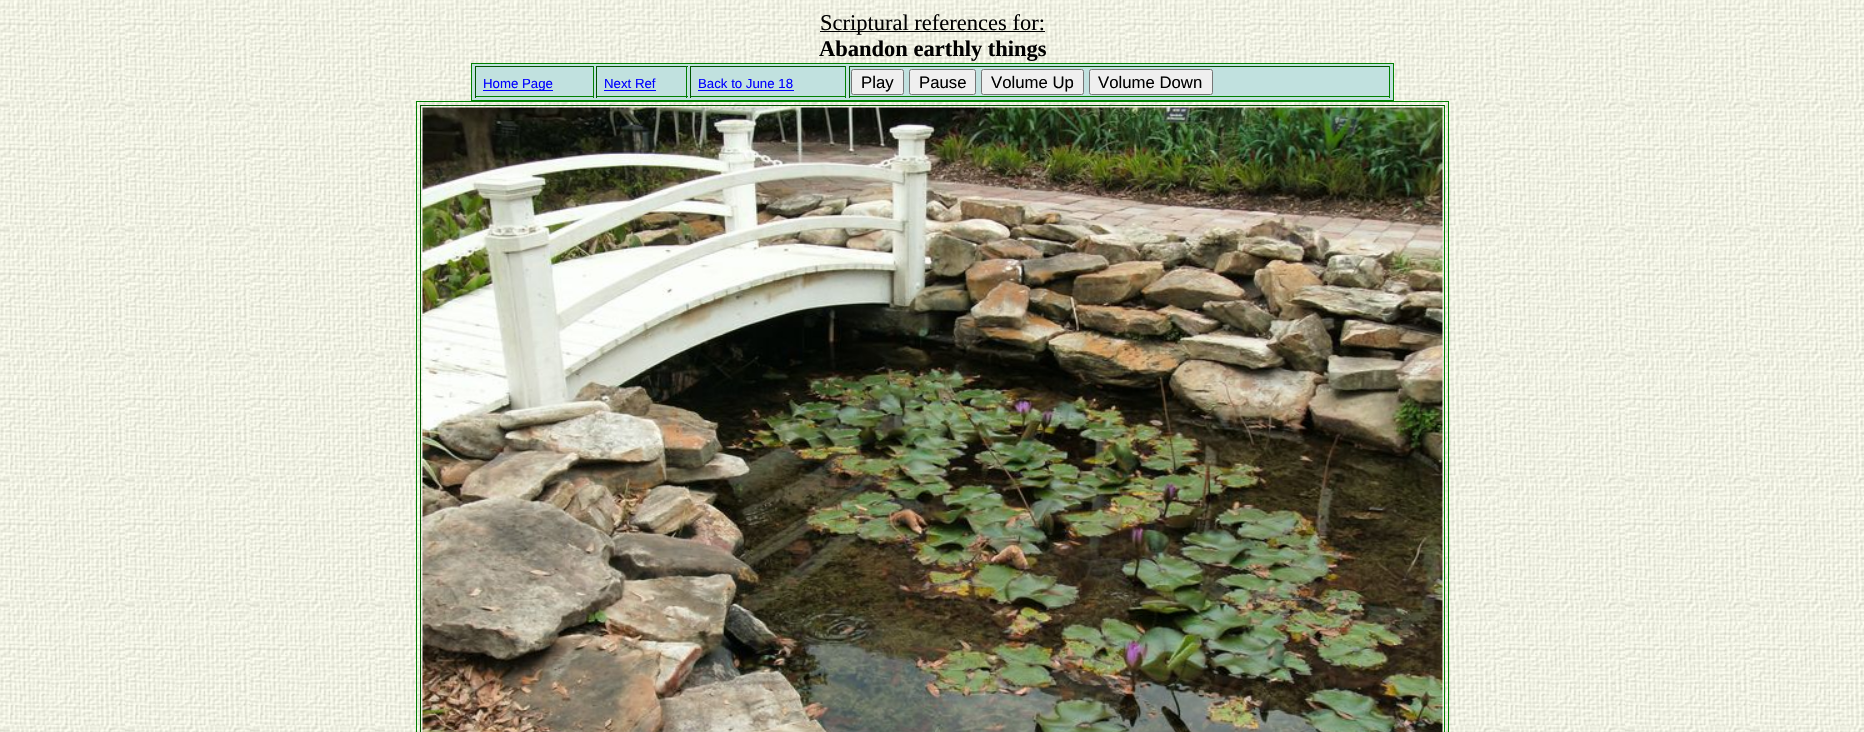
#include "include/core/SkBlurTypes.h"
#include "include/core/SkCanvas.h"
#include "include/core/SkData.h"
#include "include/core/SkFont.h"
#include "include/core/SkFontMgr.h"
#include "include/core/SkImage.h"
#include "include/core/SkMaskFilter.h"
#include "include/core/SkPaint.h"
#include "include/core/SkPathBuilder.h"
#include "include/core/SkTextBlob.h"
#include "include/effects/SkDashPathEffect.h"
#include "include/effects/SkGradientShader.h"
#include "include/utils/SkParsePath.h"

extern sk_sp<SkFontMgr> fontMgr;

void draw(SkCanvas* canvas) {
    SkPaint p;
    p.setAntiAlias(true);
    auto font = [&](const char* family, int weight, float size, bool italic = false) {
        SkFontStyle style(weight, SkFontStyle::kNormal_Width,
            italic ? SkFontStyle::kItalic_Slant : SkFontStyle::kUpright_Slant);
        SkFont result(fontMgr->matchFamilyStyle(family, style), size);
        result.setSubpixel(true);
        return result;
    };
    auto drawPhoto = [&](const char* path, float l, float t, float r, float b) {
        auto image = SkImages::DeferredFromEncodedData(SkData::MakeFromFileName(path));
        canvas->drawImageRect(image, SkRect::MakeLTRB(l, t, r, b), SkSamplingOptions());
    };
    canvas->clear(0xFFFFFFFF);
    drawPhoto("media/1.png", 0, 0, 1864, 732);
    p.setColor(0xFF000000);
    canvas->drawRect(SkRect::MakeLTRB(820, 31, 1045, 32), p);
    auto font1 = font("Liberation Serif", 400, 22.5f);
    canvas->drawString("Scriptural references for:", 820, 30, font1, p);
    auto font2 = font("Liberation Serif", 700, 22.5f);
    canvas->drawString("Abandon earthly things", 819, 56, font2, p);
    p.setColor(0xFFC1E1DF);
    canvas->drawRect(SkRect::MakeLTRB(471.5f, 63.5f, 1393.5f, 100.5f), p);
    p.setStyle(SkPaint::kStroke_Style);
    p.setStrokeWidth(1);
    p.setColor(0xFF008000);
    canvas->drawRect(SkRect::MakeLTRB(471.5f, 63.5f, 1393.5f, 100.5f), p);
    p.setStyle(SkPaint::kFill_Style);
    {
        const struct { float l, t, r, b; SkColor color; } items[] = {
            {475, 66, 594, 67, 0xFF005500},
            {593, 66, 594, 98, 0xFF008000},
            {475, 96, 594, 97, 0xFF008000},
            {475, 66, 476, 98, 0xFF005500},
            {483, 90, 553, 91, 0xFF0000FF},
        };
        for (auto [l, t, r, b, color] : items) {
            p.setColor(color);
            canvas->drawRect(SkRect::MakeLTRB(l, t, r, b), p);
        }
    }
    auto font3 = font("Liberation Sans", 400, 13.25f);
    canvas->drawString("Home Page", 483, 88, font3, p);
    {
        const struct { float l, t, r, b; SkColor color; } items[] = {
            {596, 66, 688, 67, 0xFF005500},
            {686, 66, 687, 98, 0xFF008000},
            {596, 96, 688, 97, 0xFF008000},
            {596, 66, 597, 98, 0xFF005500},
        };
        for (auto [l, t, r, b, color] : items) {
            p.setColor(color);
            canvas->drawRect(SkRect::MakeLTRB(l, t, r, b), p);
        }
    }
    p.setColor(0xFF0000FF);
    canvas->drawString("Next Ref", 604, 88, font3, p);
    {
        const struct { float l, t, r, b; SkColor color; } items[] = {
            {604, 90, 656, 91, 0xFF0000FF},
            {690, 66, 846, 67, 0xFF005500},
            {845, 66, 846, 98, 0xFF008000},
            {690, 96, 846, 97, 0xFF008000},
            {690, 66, 691, 98, 0xFF005500},
        };
        for (auto [l, t, r, b, color] : items) {
            p.setColor(color);
            canvas->drawRect(SkRect::MakeLTRB(l, t, r, b), p);
        }
    }
    p.setColor(0xFF0000FF);
    canvas->drawString("Back to June 18", 698, 88, font3, p);
    {
        const struct { float l, t, r, b; SkColor color; } items[] = {
            {698, 90, 794, 91, 0xFF0000FF},
            {849, 66, 1390, 67, 0xFF005500},
            {1389, 66, 1390, 98, 0xFF008000},
            {849, 96, 1390, 97, 0xFF008000},
            {849, 66, 850, 98, 0xFF005500},
        };
        for (auto [l, t, r, b, color] : items) {
            p.setColor(color);
            canvas->drawRect(SkRect::MakeLTRB(l, t, r, b), p);
        }
    }
    p.setColor(0xFFEFEFEF);
    canvas->drawRoundRect(SkRect::MakeLTRB(851.5f, 69.5f, 903.5f, 94.5f), 2, 2, p);
    p.setStyle(SkPaint::kStroke_Style);
    p.setColor(0xFF767676);
    canvas->drawRoundRect(SkRect::MakeLTRB(851.5f, 69.5f, 903.5f, 94.5f), 2, 2, p);
    auto font4 = font("Liberation Sans", 400, 16.75f);
    p.setStyle(SkPaint::kFill_Style);
    p.setColor(0xFF000000);
    canvas->drawString("Play", 861, 88, font4, p);
    p.setColor(0xFFEFEFEF);
    canvas->drawRoundRect(SkRect::MakeLTRB(909.5f, 69.5f, 975.5f, 94.5f), 2, 2, p);
    p.setStyle(SkPaint::kStroke_Style);
    p.setColor(0xFF767676);
    canvas->drawRoundRect(SkRect::MakeLTRB(909.5f, 69.5f, 975.5f, 94.5f), 2, 2, p);
    p.setStyle(SkPaint::kFill_Style);
    p.setColor(0xFF000000);
    canvas->drawString("Pause", 919, 88, font4, p);
    p.setColor(0xFFEFEFEF);
    canvas->drawRoundRect(SkRect::MakeLTRB(981.5f, 69.5f, 1083.5f, 94.5f), 2, 2, p);
    p.setStyle(SkPaint::kStroke_Style);
    p.setColor(0xFF767676);
    canvas->drawRoundRect(SkRect::MakeLTRB(981.5f, 69.5f, 1083.5f, 94.5f), 2, 2, p);
    p.setStyle(SkPaint::kFill_Style);
    p.setColor(0xFF000000);
    canvas->drawString("Volume Up", 991, 88, font4, p);
    p.setColor(0xFFEFEFEF);
    canvas->drawRoundRect(SkRect::MakeLTRB(1089.5f, 69.5f, 1212.5f, 94.5f), 2, 2, p);
    p.setStyle(SkPaint::kStroke_Style);
    p.setColor(0xFF767676);
    canvas->drawRoundRect(SkRect::MakeLTRB(1089.5f, 69.5f, 1212.5f, 94.5f), 2, 2, p);
    p.setStyle(SkPaint::kFill_Style);
    p.setColor(0xFF000000);
    canvas->drawString("Volume Down", 1098, 88, font4, p);
    p.setStyle(SkPaint::kStroke_Style);
    p.setColor(0xFF008000);
    canvas->drawRect(SkRect::MakeLTRB(416.5f, 101.5f, 1448.5f, 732.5f), p);
    p.setStyle(SkPaint::kFill_Style);
    {
        const struct { float l, t, r, b; SkColor color; } items[] = {
            {420, 105, 1445, 106, 0xFF005500},
            {1444, 105, 1445, 732, 0xFF008000},
            {420, 105, 421, 732, 0xFF005500},
        };
        for (auto [l, t, r, b, color] : items) {
            p.setColor(color);
            canvas->drawRect(SkRect::MakeLTRB(l, t, r, b), p);
        }
    }
    drawPhoto("media/2.png", 422, 107, 1443, 732);
}
